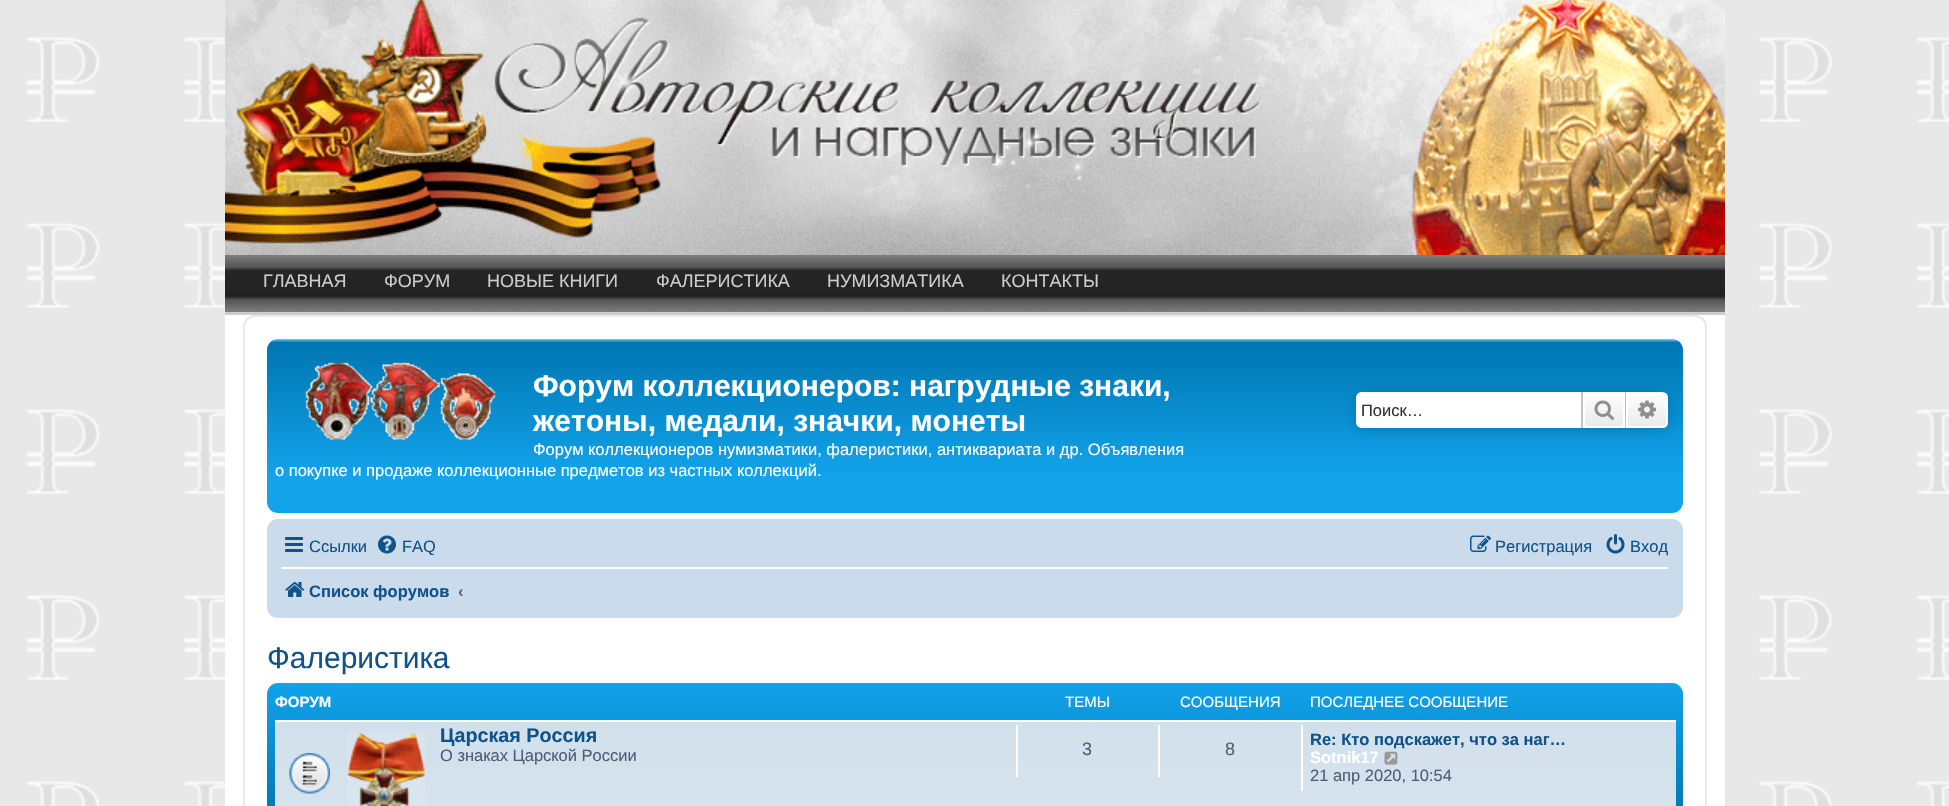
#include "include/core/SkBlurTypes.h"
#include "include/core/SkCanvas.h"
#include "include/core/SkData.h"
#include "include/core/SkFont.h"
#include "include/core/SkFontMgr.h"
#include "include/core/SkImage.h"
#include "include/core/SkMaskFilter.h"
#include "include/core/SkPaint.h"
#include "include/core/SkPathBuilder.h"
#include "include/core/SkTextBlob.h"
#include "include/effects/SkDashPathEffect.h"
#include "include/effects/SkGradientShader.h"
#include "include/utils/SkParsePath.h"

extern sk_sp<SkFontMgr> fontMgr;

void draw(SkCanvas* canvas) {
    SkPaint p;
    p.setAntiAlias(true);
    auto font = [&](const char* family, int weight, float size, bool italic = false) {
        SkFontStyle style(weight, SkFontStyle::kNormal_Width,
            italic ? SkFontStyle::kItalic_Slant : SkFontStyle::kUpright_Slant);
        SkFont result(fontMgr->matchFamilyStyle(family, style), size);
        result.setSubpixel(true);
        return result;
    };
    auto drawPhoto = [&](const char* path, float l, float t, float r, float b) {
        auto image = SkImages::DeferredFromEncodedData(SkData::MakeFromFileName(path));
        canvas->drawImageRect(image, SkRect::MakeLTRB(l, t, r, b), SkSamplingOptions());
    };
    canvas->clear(0xFFFFFFFF);
    drawPhoto("media/1.png", 0, 0, 1949, 806);
    drawPhoto("media/2.png", 225, 0, 1725, 255);
    p.setColor(0xFFFFFFFF);
    canvas->drawRect(SkRect::MakeLTRB(225, 315, 1725, 806), p);
    p.setColor(0xFFCCCCCC);
    canvas->drawRect(SkRect::MakeLTRB(225, 312, 1725, 315), p);
    drawPhoto("media/3.png", 225, 255, 1725, 312);
    auto font1 = font("Liberation Sans", 400, 18);
    {
        const struct { const char* s; float x, y; } items[] = {
            {"ГЛАВНАЯ", 263, 287},
            {"ФОРУМ", 384, 287},
            {"НОВЫЕ КНИГИ", 487, 287},
            {"ФАЛЕРИСТИКА", 656, 287},
            {"НУМИЗМАТИКА", 827, 287},
            {"КОНТАКТЫ", 1001, 287},
        };
        for (auto [s, x, y] : items) {
            canvas->drawString(s, x, y, font1, p);
        }
    }
    p.setStyle(SkPaint::kStroke_Style);
    p.setStrokeWidth(2);
    p.setColor(0xFFE6E9ED);
    canvas->drawRoundRect(SkRect::MakeLTRB(244, 316, 1706, 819), 11, 11, p);
    p.setStyle(SkPaint::kFill_Style);
    {
        const SkColor colors[] = {0xFF6ACEFF, 0xFF0076B1, 0xFF12A3EB, 0xFF12A3EB};
        const float stops[] = {0, 0.02f, 0.79f, 1};
        const SkPoint ends[] = {{975, 339}, {975, 513}};
        p.setShader(SkGradientShader::MakeLinear(ends, colors, stops, 4, SkTileMode::kClamp));
        p.setAlpha(255);
    }
    canvas->drawRoundRect(SkRect::MakeLTRB(267, 339, 1683, 513), 11, 11, p);
    drawPhoto("media/4.png", 305, 362, 496, 440);
    auto font2 = font("Liberation Sans", 700, 30);
    p.setShader(nullptr);
    p.setColor(0xFFFFFFFF);
    canvas->drawString("Форум коллекционеров: нагрудные знаки,", 533, 396, font2, p);
    canvas->drawString("жетоны, медали, значки, монеты", 533, 431, font2, p);
    auto font3 = font("Liberation Sans", 400, 16.5f);
    canvas->drawString("Форум коллекционеров нумизматики, фалеристики, антиквариата и др. Объявления", 533, 455, font3, p);
    canvas->drawString("о покупке и продаже коллекционные предметов из частных коллекций.", 275, 476, font3, p);
    p.setColor(0xFF0075B0);
    p.setMaskFilter(SkMaskFilter::MakeBlur(kNormal_SkBlurStyle, 7.5f));
    canvas->drawRoundRect(SkRect::MakeLTRB(1356, 392, 1668, 428), 6, 6, p);
    p.setMaskFilter(nullptr);
    p.setColor(0xFFFFFFFF);
    canvas->drawPath(SkPathBuilder().moveTo(1362, 392).lineTo(1581, 392).lineTo(1581, 428).lineTo(1362, 428).cubicTo(1358.5f, 428, 1356, 425.5f, 1356, 422).lineTo(1356, 398).cubicTo(1356, 394.5f, 1358.5f, 392, 1362, 392).close().detach(), p);
    p.setColor(0xFF333333);
    canvas->drawString("Поиск…", 1361, 416, font3, p);
    {
        const SkColor colors[] = {0xFFFFFFFF, 0xFFE9E9E9};
        const float stops[] = {0, 1};
        const SkPoint ends[] = {{1604, 392}, {1604, 428}};
        p.setShader(SkGradientShader::MakeLinear(ends, colors, stops, 2, SkTileMode::kClamp));
        p.setAlpha(255);
    }
    canvas->drawRect(SkRect::MakeLTRB(1585, 394, 1623, 426), p);
    p.setStyle(SkPaint::kStroke_Style);
    p.setShader(nullptr);
    p.setColor(0xFFFFFFFF);
    canvas->drawRect(SkRect::MakeLTRB(1584, 393, 1624, 427), p);
    p.setStyle(SkPaint::kFill_Style);
    p.setColor(0xFFC7C3BF);
    canvas->drawRect(SkRect::MakeLTRB(1625, 392, 1626, 428), p);
    canvas->drawRect(SkRect::MakeLTRB(1581, 392, 1583, 428), p);
    drawPhoto("media/5.png", 1594, 400, 1614, 420);
    {
        const SkColor colors[] = {0xFFFFFFFF, 0xFFE9E9E9};
        const float stops[] = {0, 1};
        const SkPoint ends[] = {{1647, 392}, {1647, 428}};
        p.setShader(SkGradientShader::MakeLinear(ends, colors, stops, 2, SkTileMode::kClamp));
        p.setAlpha(255);
    }
    canvas->drawPath(SkPathBuilder().moveTo(1627, 393).lineTo(1662, 393).cubicTo(1665, 393, 1667, 395, 1667, 398).lineTo(1667, 422).cubicTo(1667, 425, 1665, 427, 1662, 427).lineTo(1627, 427).close().detach(), p);
    p.setStyle(SkPaint::kStroke_Style);
    p.setShader(nullptr);
    p.setColor(0xFFFFFFFF);
    canvas->drawPath(SkPathBuilder().moveTo(1627, 393).lineTo(1662, 393).cubicTo(1665, 393, 1667, 395, 1667, 398).lineTo(1667, 422).cubicTo(1667, 425, 1665, 427, 1662, 427).lineTo(1627, 427).close().detach(), p);
    drawPhoto("media/6.png", 1638, 400, 1656, 419);
    p.setStyle(SkPaint::kFill_Style);
    p.setColor(0xFFCADCEB);
    canvas->drawRoundRect(SkRect::MakeLTRB(267, 519, 1683, 618), 11, 11, p);
    drawPhoto("media/7.png", 285, 537, 303, 552);
    p.setColor(0xFF105289);
    canvas->drawString("Ссылки", 309, 552, font3, p);
    drawPhoto("media/8.png", 378, 535, 396, 554);
    canvas->drawString("FAQ", 402, 552, font3, p);
    drawPhoto("media/9.png", 1470, 535, 1491, 552);
    canvas->drawString("Регистрация", 1495, 552, font3, p);
    drawPhoto("media/10.png", 1606, 534, 1625, 554);
    canvas->drawString("Вход", 1630, 552, font3, p);
    p.setColor(0xFFFFFFFF);
    canvas->drawRect(SkRect::MakeLTRB(282, 567, 1668, 569), p);
    drawPhoto("media/11.png", 285, 582, 305, 597);
    auto font4 = font("Liberation Sans", 700, 16.5f);
    p.setColor(0xFF105289);
    canvas->drawString("Список форумов", 309, 597, font4, p);
    p.setColor(0xFF536482);
    canvas->drawString("‹", 458, 597, font4, p);
    auto font5 = font("Liberation Sans", 400, 30);
    p.setColor(0xFF105289);
    canvas->drawString("Фалеристика", 267, 668, font5, p);
    {
        const SkColor colors[] = {0xFF6ACEFF, 0xFF12A3EB, 0xFF0076B1, 0xFF0076B1};
        const float stops[] = {0, 0, 0.2f, 1};
        const SkPoint ends[] = {{975, 682}, {975, 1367}};
        p.setShader(SkGradientShader::MakeLinear(ends, colors, stops, 4, SkTileMode::kClamp));
        p.setAlpha(255);
    }
    canvas->drawRoundRect(SkRect::MakeLTRB(267, 683, 1683, 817), 11, 11, p);
    auto font6 = font("Liberation Sans", 700, 15);
    p.setShader(nullptr);
    p.setColor(0xFFFFFFFF);
    canvas->drawString("ФОРУМ", 275, 707, font6, p);
    auto font7 = font("Liberation Sans", 400, 15);
    {
        const struct { const char* s; float x, y; } items[] = {
            {"ТЕМЫ", 1065, 707},
            {"СООБЩЕНИЯ", 1180, 707},
            {"ПОСЛЕДНЕЕ СООБЩЕНИЕ", 1310, 707},
        };
        for (auto [s, x, y] : items) {
            canvas->drawString(s, x, y, font7, p);
        }
    }
    {
        const SkColor colors[] = {0xFFD2E0EB, 0xFFEEF5F9};
        const float stops[] = {0, 1};
        const SkPoint ends[] = {{975, 720}, {975, 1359}};
        p.setShader(SkGradientShader::MakeLinear(ends, colors, stops, 2, SkTileMode::kClamp));
        p.setAlpha(255);
    }
    canvas->drawRect(SkRect::MakeLTRB(275, 722, 1676, 806), p);
    p.setShader(nullptr);
    p.setColor(0xFFFFFFFF);
    canvas->drawRect(SkRect::MakeLTRB(275, 720, 1676, 722), p);
    drawPhoto("media/12.png", 289, 753, 330, 794);
    drawPhoto("media/13.png", 347, 732, 426, 806);
    auto font8 = font("Liberation Sans", 700, 19.75f);
    p.setColor(0xFF105289);
    canvas->drawString("Царская Россия", 440, 742, font8, p);
    p.setColor(0xFF4C5D77);
    canvas->drawString("О знаках Царской России", 440, 761, font3, p);
    p.setColor(0xFFFFFFFF);
    canvas->drawRect(SkRect::MakeLTRB(1016, 725, 1018, 777), p);
    p.setColor(0xFF4C5D77);
    canvas->drawString("3", 1082, 755, font1, p);
    p.setColor(0xFFFFFFFF);
    canvas->drawRect(SkRect::MakeLTRB(1158, 725, 1160, 777), p);
    p.setColor(0xFF4C5D77);
    canvas->drawString("8", 1225, 755, font1, p);
    p.setColor(0xFFFFFFFF);
    canvas->drawRect(SkRect::MakeLTRB(1301, 725, 1303, 791), p);
    p.setColor(0xFF105289);
    canvas->drawString("Re: Кто подскажет, что за наг…", 1310, 745, font4, p);
    p.setColor(0xFFFFFFFF);
    canvas->drawString("Sotnik17", 1310, 763, font4, p);
    drawPhoto("media/14.png", 1384, 751, 1398, 765);
    p.setColor(0xFF4C5D77);
    canvas->drawString("21 апр 2020, 10:54", 1310, 781, font3, p);
}
